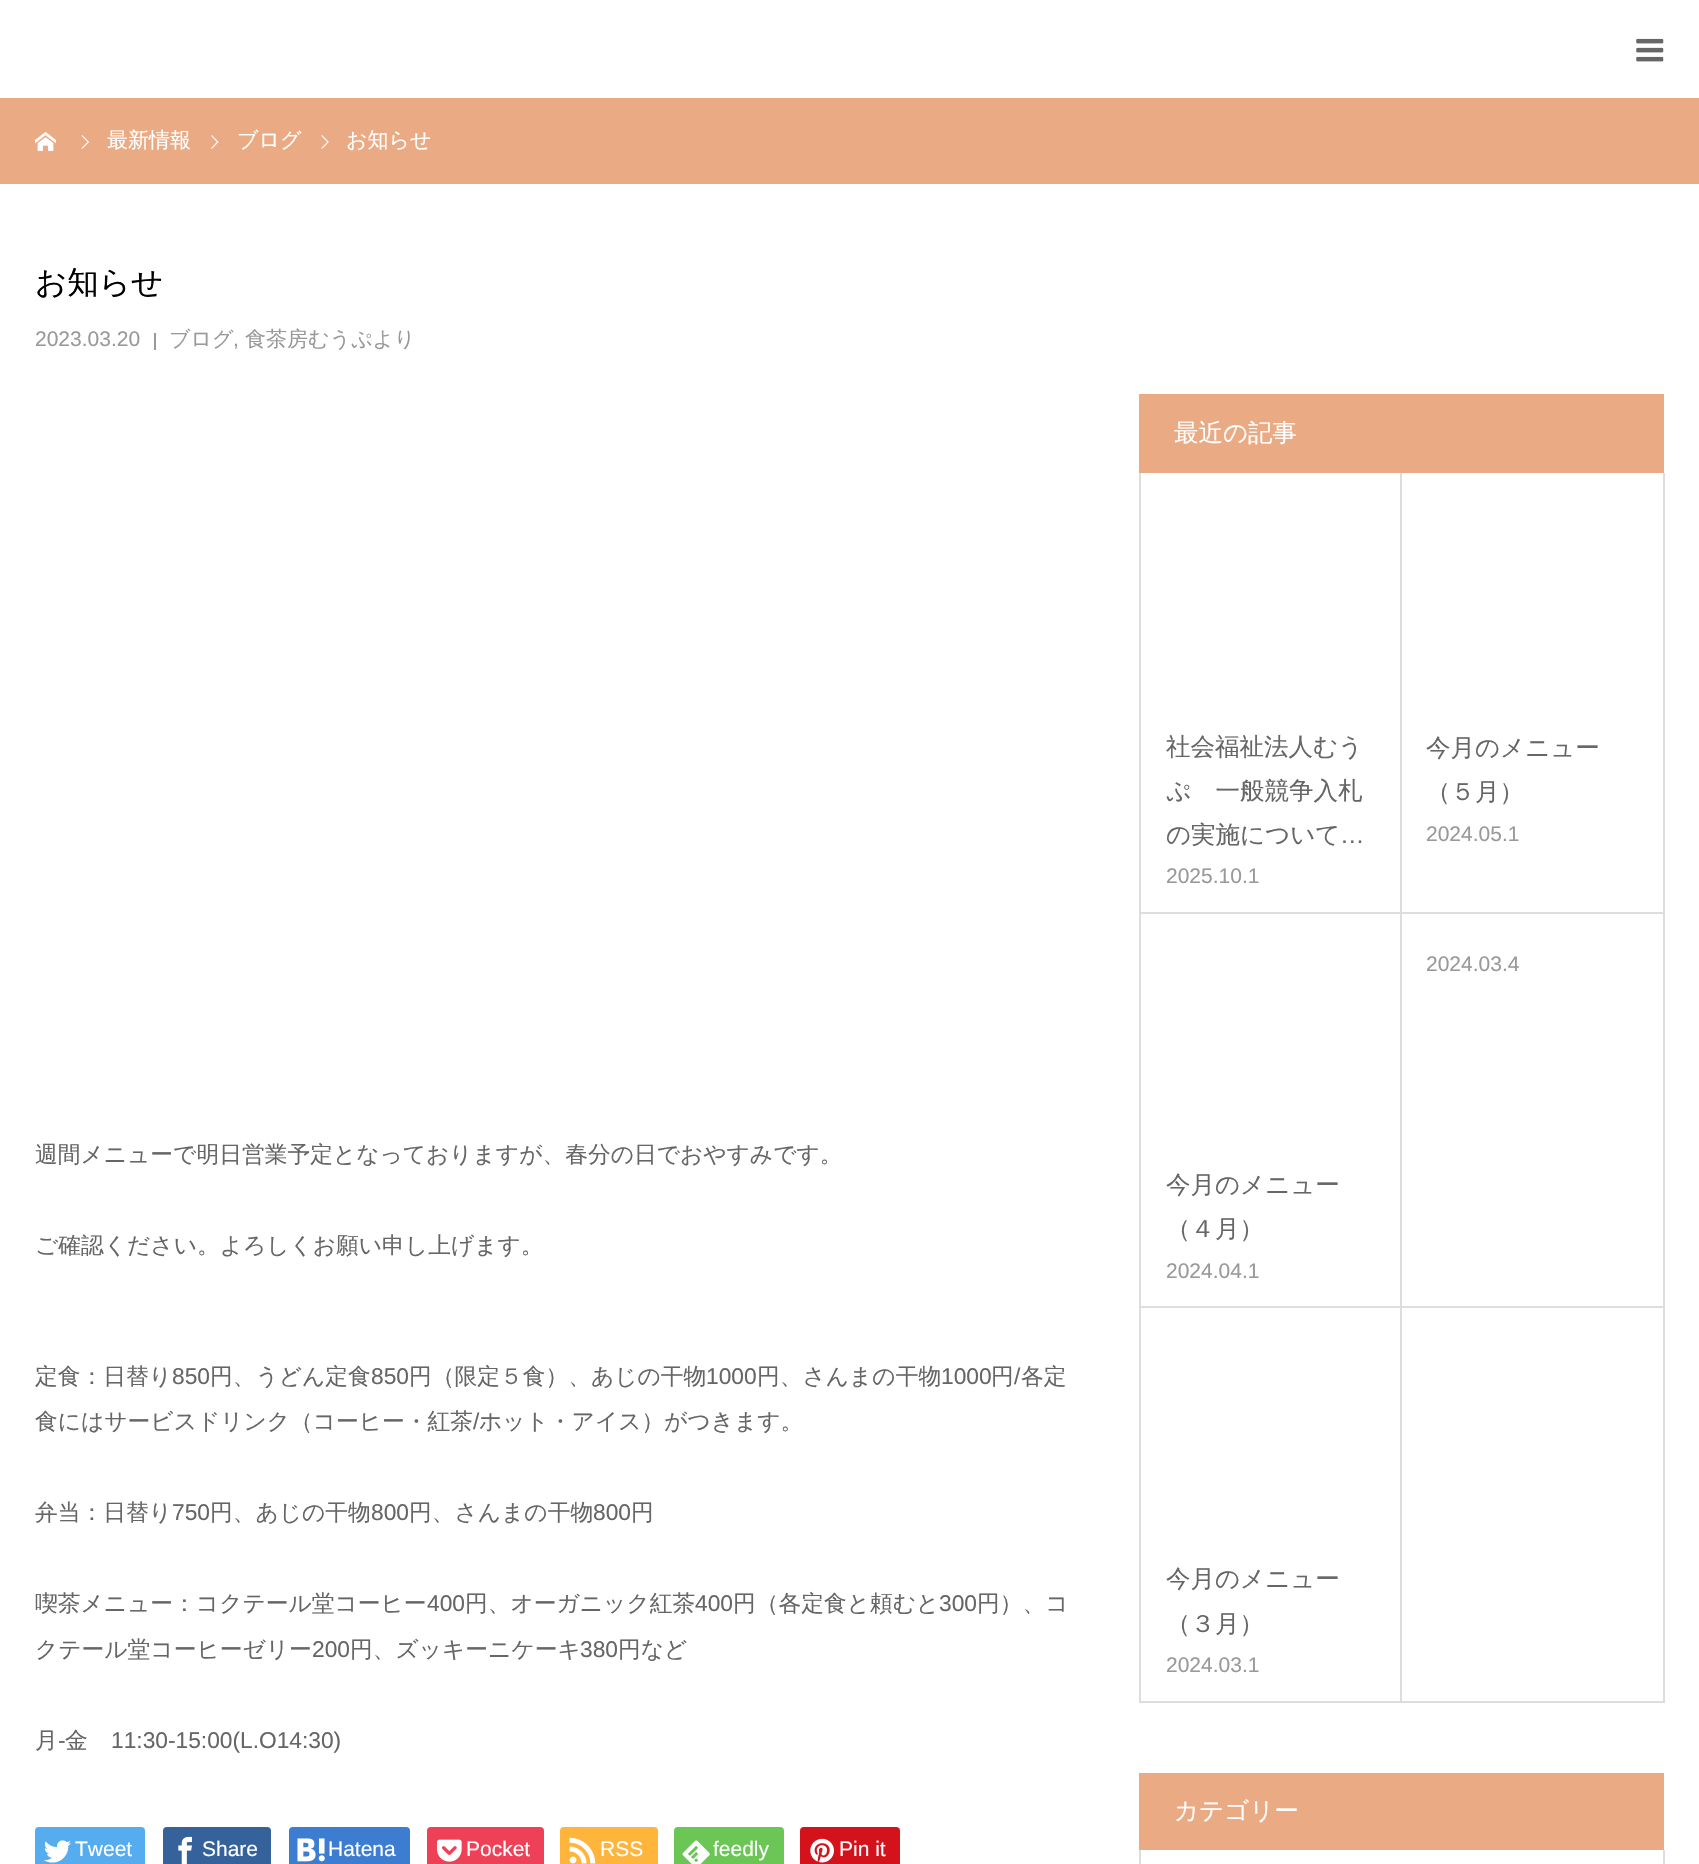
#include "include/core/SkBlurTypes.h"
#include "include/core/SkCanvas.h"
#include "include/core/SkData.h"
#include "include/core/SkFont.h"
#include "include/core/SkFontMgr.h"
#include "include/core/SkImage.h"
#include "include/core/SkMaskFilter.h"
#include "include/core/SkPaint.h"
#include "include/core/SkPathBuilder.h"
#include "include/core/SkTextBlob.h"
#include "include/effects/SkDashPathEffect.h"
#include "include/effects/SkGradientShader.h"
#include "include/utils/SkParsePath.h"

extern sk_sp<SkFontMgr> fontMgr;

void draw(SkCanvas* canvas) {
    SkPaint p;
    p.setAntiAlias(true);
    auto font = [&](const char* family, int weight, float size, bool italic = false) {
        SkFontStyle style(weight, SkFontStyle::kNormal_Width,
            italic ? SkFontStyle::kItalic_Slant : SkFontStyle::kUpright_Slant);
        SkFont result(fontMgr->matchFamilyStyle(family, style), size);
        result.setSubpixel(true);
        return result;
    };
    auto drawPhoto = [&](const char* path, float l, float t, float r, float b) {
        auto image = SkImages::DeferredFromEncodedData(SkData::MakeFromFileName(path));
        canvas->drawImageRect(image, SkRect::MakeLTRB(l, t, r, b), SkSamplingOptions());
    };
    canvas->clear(0xFFFFFFFF);
    drawPhoto("media/1.png", 1636, 38, 1664, 62);
    p.setColor(0xFFEAAA83);
    canvas->drawRect(SkRect::MakeLTRB(0, 98, 1699, 184), p);
    drawPhoto("media/2.png", 35, 132, 56, 151);
    drawPhoto("media/3.png", 81, 135, 89, 149);
    auto font1 = font("WenQuanYi Zen Hei", 500, 21);
    p.setColor(0xFFFFFFFF);
    canvas->drawString("最新情報", 107, 147, font1, p);
    drawPhoto("media/4.png", 211, 135, 219, 149);
    canvas->drawString("ブログ", 237, 147, font1, p);
    drawPhoto("media/5.png", 321, 135, 329, 149);
    canvas->drawString("お知らせ", 346, 147, font1, p);
    auto font2 = font("WenQuanYi Zen Hei", 500, 31.5f);
    p.setColor(0xFF000000);
    canvas->drawString("お知らせ", 35, 293, font2, p);
    auto font3 = font("Liberation Sans", 400, 21);
    p.setColor(0xFF999999);
    canvas->drawString("2023.03.20", 35, 346, font3, p);
    canvas->drawRect(SkRect::MakeLTRB(154, 333, 156, 350), p);
    canvas->drawString("ブログ", 169, 346, font1, p);
    canvas->drawString(",", 233, 346, font3, p);
    canvas->drawString("食茶房むうぷより", 245, 346, font1, p);
    auto font4 = font("WenQuanYi Zen Hei", 500, 22.75f);
    p.setColor(0xFF666666);
    {
        const struct { const char* s; float x, y; } items[] = {
            {"週間メニューで明日営業予定となっておりますが、春分の日でおやすみです。", 35, 1162},
            {"ご確認ください。よろしくお願い申し上げます。", 35, 1253},
            {"定食：日替り", 35, 1384},
        };
        for (auto [s, x, y] : items) {
            canvas->drawString(s, x, y, font4, p);
        }
    }
    auto font5 = font("Liberation Sans", 400, 22.75f);
    canvas->drawString("850", 172, 1384, font5, p);
    canvas->drawString("円、うどん定食", 210, 1384, font4, p);
    canvas->drawString("850", 371, 1384, font5, p);
    canvas->drawString("円（限定５食）、あじの干物", 409, 1384, font4, p);
    canvas->drawString("1000", 706, 1384, font5, p);
    canvas->drawString("円、さんまの干物", 757, 1384, font4, p);
    canvas->drawString("1000", 941, 1384, font5, p);
    canvas->drawString("円", 991, 1384, font4, p);
    canvas->drawString("/", 1014, 1384, font5, p);
    canvas->drawString("各定", 1021, 1384, font4, p);
    canvas->drawString("食にはサービスドリンク（コーヒー・紅茶", 35, 1429, font4, p);
    canvas->drawString("/", 473, 1429, font5, p);
    canvas->drawString("ホット・アイス）がつきます。", 479, 1429, font4, p);
    canvas->drawString("弁当：日替り", 35, 1520, font4, p);
    canvas->drawString("750", 172, 1520, font5, p);
    canvas->drawString("円、あじの干物", 210, 1520, font4, p);
    canvas->drawString("800", 371, 1520, font5, p);
    canvas->drawString("円、さんまの干物", 409, 1520, font4, p);
    canvas->drawString("800", 593, 1520, font5, p);
    canvas->drawString("円", 631, 1520, font4, p);
    canvas->drawString("喫茶メニュー：コクテール堂コーヒー", 35, 1611, font4, p);
    canvas->drawString("400", 427, 1611, font5, p);
    canvas->drawString("円、オーガニック紅茶", 465, 1611, font4, p);
    canvas->drawString("400", 695, 1611, font5, p);
    canvas->drawString("円（各定食と頼むと", 733, 1611, font4, p);
    canvas->drawString("300", 939, 1611, font5, p);
    canvas->drawString("円）、コ", 977, 1611, font4, p);
    canvas->drawString("クテール堂コーヒーゼリー", 35, 1657, font4, p);
    canvas->drawString("200", 312, 1657, font5, p);
    canvas->drawString("円、ズッキーニケーキ", 350, 1657, font4, p);
    canvas->drawString("380", 580, 1657, font5, p);
    canvas->drawString("円など", 618, 1657, font4, p);
    canvas->drawString("月", 35, 1748, font4, p);
    canvas->drawString("-", 58, 1748, font5, p);
    canvas->drawString("金", 65, 1748, font4, p);
    canvas->drawString("11:30-15:00(L.O14:30)", 111, 1748, font5, p);
    p.setColor(0xFF55ACEE);
    canvas->drawRoundRect(SkRect::MakeLTRB(35, 1827, 145, 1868), 4, 4, p);
    drawPhoto("media/6.png", 44, 1840, 71, 1863);
    p.setColor(0xFFFFFFFF);
    canvas->drawString("Tweet", 75, 1856, font3, p);
    p.setColor(0xFF35629A);
    canvas->drawRoundRect(SkRect::MakeLTRB(163, 1827, 271, 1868), 4, 4, p);
    drawPhoto("media/7.png", 178, 1836, 192, 1864);
    p.setColor(0xFFFFFFFF);
    canvas->drawString("Share", 202, 1856, font3, p);
    p.setColor(0xFF3C7DD1);
    canvas->drawRoundRect(SkRect::MakeLTRB(289, 1827, 410, 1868), 4, 4, p);
    drawPhoto("media/8.png", 297, 1838, 325, 1862);
    p.setColor(0xFFFFFFFF);
    canvas->drawString("Hatena", 328, 1856, font3, p);
    p.setColor(0xFFEE4056);
    canvas->drawRoundRect(SkRect::MakeLTRB(427, 1827, 544, 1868), 4, 4, p);
    drawPhoto("media/9.png", 437, 1839, 462, 1862);
    p.setColor(0xFFFFFFFF);
    canvas->drawString("Pocket", 466, 1856, font3, p);
    p.setColor(0xFFFFB53C);
    canvas->drawRoundRect(SkRect::MakeLTRB(560, 1827, 658, 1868), 4, 4, p);
    drawPhoto("media/10.png", 569, 1837, 596, 1864);
    p.setColor(0xFFFFFFFF);
    canvas->drawString("RSS", 600, 1856, font3, p);
    p.setColor(0xFF6CC655);
    canvas->drawRoundRect(SkRect::MakeLTRB(674, 1827, 784, 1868), 4, 4, p);
    drawPhoto("media/11.png", 682, 1840, 710, 1864);
    p.setColor(0xFFFFFFFF);
    canvas->drawString("feedly", 713, 1856, font3, p);
    p.setColor(0xFFD4121C);
    canvas->drawRoundRect(SkRect::MakeLTRB(800, 1827, 900, 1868), 4, 4, p);
    drawPhoto("media/12.png", 810, 1838, 834, 1863);
    p.setColor(0xFFFFFFFF);
    canvas->drawString("Pin it", 839, 1856, font3, p);
    p.setColor(0xFFEAAA83);
    canvas->drawRect(SkRect::MakeLTRB(1139, 394, 1664, 473), p);
    auto font6 = font("WenQuanYi Zen Hei", 500, 24.5f);
    p.setColor(0xFFFFFFFF);
    canvas->drawString("最近の記事", 1174, 441, font6, p);
    {
        const struct { float l, t, r, b; SkColor color; } items[] = {
            {1663, 473, 1665, 1703, 0xFFDDDDDD},
            {1139, 1701, 1664, 1703, 0xFFDDDDDD},
            {1139, 473, 1141, 1703, 0xFFDDDDDD},
            {1400, 473, 1402, 914, 0xFFDDDDDD},
            {1141, 912, 1663, 914, 0xFFDDDDDD},
        };
        for (auto [l, t, r, b, color] : items) {
            p.setColor(color);
            canvas->drawRect(SkRect::MakeLTRB(l, t, r, b), p);
        }
    }
    p.setColor(0xFF666666);
    {
        const struct { const char* s; float x, y; } items[] = {
            {"社会福祉法人むう", 1166, 755},
            {"ぷ　一般競争入札", 1166, 799},
            {"の実施について", 1166, 843},
        };
        for (auto [s, x, y] : items) {
            canvas->drawString(s, x, y, font6, p);
        }
    }
    auto font7 = font("Liberation Sans", 400, 24.5f);
    canvas->drawString("…", 1340, 843, font7, p);
    p.setColor(0xFF999999);
    canvas->drawString("2025.10.1", 1166, 883, font3, p);
    p.setColor(0xFF666666);
    canvas->drawString("今月のメニュー", 1426, 756, font6, p);
    canvas->drawString("（５月）", 1426, 800, font6, p);
    p.setColor(0xFF999999);
    canvas->drawString("2024.05.1", 1426, 841, font3, p);
    canvas->drawString("2024.03.4", 1426, 971, font3, p);
    p.setColor(0xFFDDDDDD);
    canvas->drawRect(SkRect::MakeLTRB(1400, 912, 1402, 1307), p);
    canvas->drawRect(SkRect::MakeLTRB(1141, 1306, 1663, 1308), p);
    p.setColor(0xFF666666);
    canvas->drawString("今月のメニュー", 1166, 1193, font6, p);
    canvas->drawString("（４月）", 1166, 1237, font6, p);
    p.setColor(0xFF999999);
    canvas->drawString("2024.04.1", 1166, 1278, font3, p);
    p.setColor(0xFFDDDDDD);
    canvas->drawRect(SkRect::MakeLTRB(1400, 1306, 1402, 1701), p);
    p.setColor(0xFF666666);
    canvas->drawString("今月のメニュー", 1166, 1587, font6, p);
    canvas->drawString("（３月）", 1166, 1632, font6, p);
    p.setColor(0xFF999999);
    canvas->drawString("2024.03.1", 1166, 1672, font3, p);
    p.setColor(0xFFEAAA83);
    canvas->drawRect(SkRect::MakeLTRB(1139, 1773, 1664, 1850), p);
    p.setColor(0xFFFFFFFF);
    canvas->drawString("カテゴリー", 1174, 1819, font6, p);
    p.setColor(0xFFDDDDDD);
    canvas->drawRect(SkRect::MakeLTRB(1663, 1850, 1665, 1864), p);
    canvas->drawRect(SkRect::MakeLTRB(1139, 1850, 1141, 1864), p);
}
